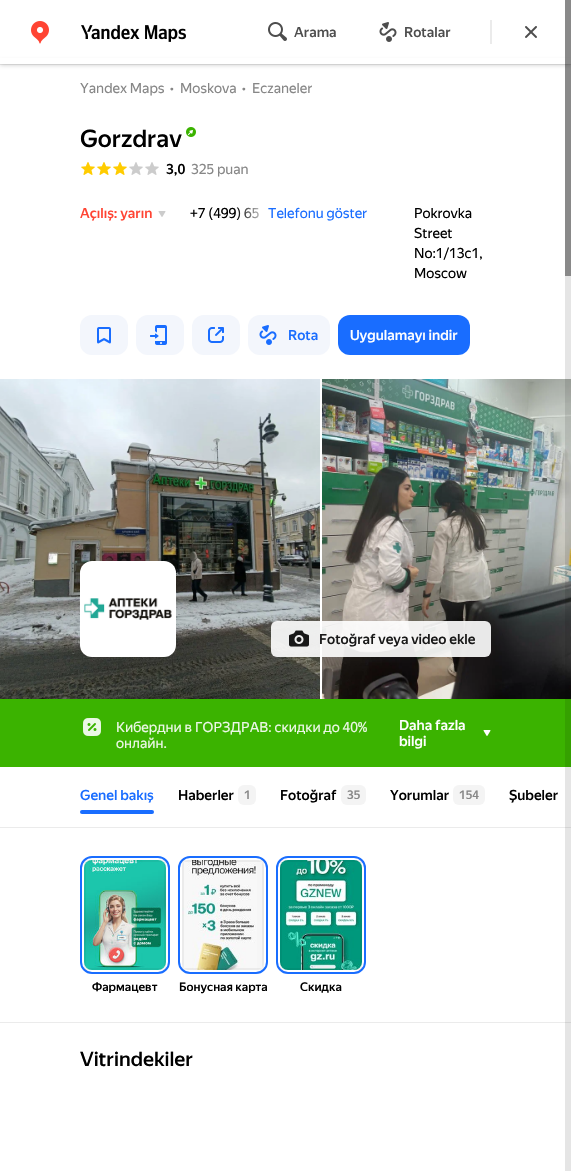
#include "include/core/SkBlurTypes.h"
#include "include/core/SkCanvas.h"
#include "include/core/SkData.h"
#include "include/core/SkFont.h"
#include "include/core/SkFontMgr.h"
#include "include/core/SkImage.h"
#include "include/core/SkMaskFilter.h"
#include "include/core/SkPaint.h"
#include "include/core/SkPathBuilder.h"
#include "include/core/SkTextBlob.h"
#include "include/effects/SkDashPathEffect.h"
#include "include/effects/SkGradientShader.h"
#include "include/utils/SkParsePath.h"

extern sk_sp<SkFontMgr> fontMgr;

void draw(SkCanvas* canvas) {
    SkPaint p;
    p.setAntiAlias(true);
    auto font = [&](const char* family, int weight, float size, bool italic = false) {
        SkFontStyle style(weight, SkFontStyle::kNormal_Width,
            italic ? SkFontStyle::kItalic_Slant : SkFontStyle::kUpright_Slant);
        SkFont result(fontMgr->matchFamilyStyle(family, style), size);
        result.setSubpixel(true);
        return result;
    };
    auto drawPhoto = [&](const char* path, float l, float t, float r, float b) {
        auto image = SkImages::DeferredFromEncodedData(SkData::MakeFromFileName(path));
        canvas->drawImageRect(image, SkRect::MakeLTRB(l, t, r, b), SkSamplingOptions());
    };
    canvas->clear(0xFFFFFFFF);
    p.setColor(0xFFEBEBEB);
    canvas->drawRect(SkRect::MakeLTRB(0, 64, 571, 65), p);
    p.setColor(0x33000000);
    p.setMaskFilter(SkMaskFilter::MakeBlur(kNormal_SkBlurStyle, 2));
    canvas->drawRect(SkRect::MakeLTRB(0, 61, 571, 65), p);
    p.setMaskFilter(nullptr);
    p.setColor(0xFFFFFFFF);
    canvas->drawRect(SkRect::MakeLTRB(0, 58, 571, 64), p);
    drawPhoto("media/1.png", 31, 21, 49, 44);
    drawPhoto("media/2.png", 81, 25, 186, 42);
    drawPhoto("media/3.png", 268, 22, 287, 41);
    auto font1 = font("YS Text", 500, 14);
    p.setColor(0xFF4D4D4D);
    canvas->drawString("Arama", 294, 37, font1, p);
    drawPhoto("media/4.png", 379, 22, 397, 42);
    canvas->drawString("Rotalar", 404, 37, font1, p);
    p.setColor(0xFFEBEBEB);
    canvas->drawRect(SkRect::MakeLTRB(490, 20, 492, 44), p);
    drawPhoto("media/5.png", 525, 26, 537, 38);
    auto font2 = font("YS Text", 400, 14);
    p.setColor(0xFF878787);
    {
        const struct { const char* s; float x, y; } items[] = {
            {"Yandex Maps", 80, 93},
            {"•", 170, 93},
            {"Moskova", 180, 93},
            {"•", 242, 93},
            {"Eczaneler", 252, 93},
        };
        for (auto [s, x, y] : items) {
            canvas->drawString(s, x, y, font2, p);
        }
    }
    auto font3 = font("YS Text", 500, 24);
    p.setColor(0xFF000000);
    canvas->drawString("Gorzdrav", 80, 147, font3, p);
    drawPhoto("media/6.png", 186, 127, 196, 137);
    drawPhoto("media/7.png", 81, 162, 95, 175);
    drawPhoto("media/7.png", 97, 162, 111, 175);
    drawPhoto("media/7.png", 113, 162, 127, 175);
    drawPhoto("media/8.png", 129, 162, 143, 175);
    drawPhoto("media/8.png", 145, 162, 159, 175);
    canvas->drawString("3,0", 166, 174, font1, p);
    p.setColor(0xFF878787);
    canvas->drawString("325 puan", 191, 174, font2, p);
    p.setColor(0xFFFF4433);
    canvas->drawString("Açılış: yarın", 80, 218, font1, p);
    drawPhoto("media/9.png", 158, 211, 166, 217);
    p.setColor(0xFF000000);
    canvas->drawString("+7 (499) 65", 190, 218, font2, p);
    {
        const SkColor colors[] = {0x00FFFFFF, 0xFFFFFFFF};
        const float stops[] = {0, 1};
        const SkPoint ends[] = {{236, 213}, {268, 213}};
        p.setShader(SkGradientShader::MakeLinear(ends, colors, stops, 2, SkTileMode::kClamp));
        p.setAlpha(255);
    }
    canvas->drawRect(SkRect::MakeLTRB(237, 207, 259, 220), p);
    p.setShader(nullptr);
    p.setColor(0xFF196DFF);
    canvas->drawString("Telefonu göster", 268, 218, font2, p);
    p.setColor(0xFF000000);
    {
        const struct { const char* s; float x, y; } items[] = {
            {"Pokrovka", 414, 218},
            {"Street", 414, 238},
            {"No:1/13с1,", 414, 258},
            {"Moscow", 414, 278},
        };
        for (auto [s, x, y] : items) {
            canvas->drawString(s, x, y, font2, p);
        }
    }
    p.setColor(0xFFF3F6FC);
    canvas->drawRoundRect(SkRect::MakeLTRB(80, 315, 128, 355), 12, 12, p);
    drawPhoto("media/10.png", 97, 327, 111, 344);
    canvas->drawRoundRect(SkRect::MakeLTRB(136, 315, 184, 355), 12, 12, p);
    drawPhoto("media/11.png", 150, 325, 167, 345);
    canvas->drawRoundRect(SkRect::MakeLTRB(192, 315, 240, 355), 12, 12, p);
    drawPhoto("media/12.png", 208, 327, 224, 343);
    canvas->drawRoundRect(SkRect::MakeLTRB(248, 315, 330, 355), 12, 12, p);
    drawPhoto("media/13.png", 259, 325, 277, 345);
    p.setColor(0xFF196DFF);
    canvas->drawString("Rota", 288, 340, font1, p);
    canvas->drawRoundRect(SkRect::MakeLTRB(338, 315, 470, 355), 12, 12, p);
    p.setColor(0xFFFFFFFF);
    canvas->drawString("Uygulamayı indir", 350, 340, font1, p);
    drawPhoto("media/14.png", 0, 379, 320, 699);
    drawPhoto("media/15.png", 322, 379, 571, 699);
    drawPhoto("media/16.png", 80, 561, 176, 657);
    p.setColor(0xE6FFFFFF);
    canvas->drawRoundRect(SkRect::MakeLTRB(271, 621, 491, 657), 6, 6, p);
    drawPhoto("media/17.png", 289, 630, 309, 647);
    p.setColor(0xFF181818);
    canvas->drawString("Fotoğraf veya video ekle", 319, 644, font1, p);
    p.setColor(0xFF3BB300);
    canvas->drawRect(SkRect::MakeLTRB(0, 699, 571, 767), p);
    drawPhoto("media/18.png", 83, 718, 101, 736);
    p.setColor(0xFFEBF7E6);
    canvas->drawString("Кибердни в ГОРЗДРАВ: скидки до 40%", 116, 732, font2, p);
    canvas->drawString("онлайн.", 116, 748, font2, p);
    p.setColor(0xFFFFFFFF);
    canvas->drawString("Daha fazla", 399, 730, font1, p);
    drawPhoto("media/19.png", 483, 730, 491, 736);
    canvas->drawString("bilgi", 399, 746, font1, p);
    p.setColor(0xFF196DFF);
    canvas->drawString("Genel bakış", 80, 800, font1, p);
    p.setColor(0xFF000000);
    canvas->drawString("Haberler", 178, 800, font1, p);
    p.setColor(0xFFF4F4F4);
    canvas->drawRoundRect(SkRect::MakeLTRB(238, 785, 256, 805), 6, 6, p);
    auto font4 = font("YS Text", 500, 12);
    p.setColor(0xFF878787);
    canvas->drawString("1", 244, 799, font4, p);
    p.setColor(0xFF000000);
    canvas->drawString("Fotoğraf", 280, 800, font1, p);
    p.setColor(0xFFF4F4F4);
    canvas->drawRoundRect(SkRect::MakeLTRB(341, 785, 366, 805), 6, 6, p);
    p.setColor(0xFF878787);
    canvas->drawString("35", 347, 799, font4, p);
    p.setColor(0xFF000000);
    canvas->drawString("Yorumlar", 390, 800, font1, p);
    p.setColor(0xFFF4F4F4);
    canvas->drawRoundRect(SkRect::MakeLTRB(453, 785, 485, 805), 6, 6, p);
    p.setColor(0xFF878787);
    canvas->drawString("154", 459, 799, font4, p);
    p.setColor(0xFF000000);
    canvas->drawString("Şubeler", 509, 800, font1, p);
    p.setColor(0xFF196DFF);
    canvas->drawRoundRect(SkRect::MakeLTRB(80, 810, 154, 814), 2, 2, p);
    p.setColor(0xFFEBEBEB);
    canvas->drawRect(SkRect::MakeLTRB(0, 827, 571, 828), p);
    p.setStyle(SkPaint::kStroke_Style);
    p.setStrokeWidth(2);
    p.setColor(0xFF196DFF);
    canvas->drawRoundRect(SkRect::MakeLTRB(81, 857, 169, 973), 11, 11, p);
    p.setStyle(SkPaint::kFill_Style);
    p.setColor(0xFFF6F6F6);
    canvas->drawRoundRect(SkRect::MakeLTRB(84, 860, 166, 970), 8, 8, p);
    drawPhoto("media/20.png", 84, 860, 166, 970);
    p.setStyle(SkPaint::kStroke_Style);
    p.setColor(0x0D000000);
    canvas->drawRect(SkRect::MakeLTRB(85, 861, 165, 969), p);
    p.setStyle(SkPaint::kFill_Style);
    p.setColor(0xFF000000);
    canvas->drawString("Фармацевт", 92, 991, font4, p);
    p.setStyle(SkPaint::kStroke_Style);
    p.setColor(0xFF196DFF);
    canvas->drawRoundRect(SkRect::MakeLTRB(179, 857, 267, 973), 11, 11, p);
    p.setStyle(SkPaint::kFill_Style);
    p.setColor(0xFFF6F6F6);
    canvas->drawRoundRect(SkRect::MakeLTRB(182, 860, 264, 970), 8, 8, p);
    drawPhoto("media/21.png", 182, 860, 257, 970);
    p.setStyle(SkPaint::kStroke_Style);
    p.setColor(0x0D000000);
    canvas->drawRect(SkRect::MakeLTRB(183, 861, 263, 969), p);
    p.setStyle(SkPaint::kFill_Style);
    p.setColor(0xFF000000);
    canvas->drawString("Бонусная карта", 179, 991, font4, p);
    p.setStyle(SkPaint::kStroke_Style);
    p.setColor(0xFF196DFF);
    canvas->drawRoundRect(SkRect::MakeLTRB(277, 857, 365, 973), 11, 11, p);
    p.setStyle(SkPaint::kFill_Style);
    p.setColor(0xFFF6F6F6);
    canvas->drawRoundRect(SkRect::MakeLTRB(280, 860, 362, 970), 8, 8, p);
    drawPhoto("media/22.png", 280, 860, 362, 970);
    p.setStyle(SkPaint::kStroke_Style);
    p.setColor(0x0D000000);
    canvas->drawRect(SkRect::MakeLTRB(281, 861, 361, 969), p);
    p.setStyle(SkPaint::kFill_Style);
    p.setColor(0xFF000000);
    canvas->drawString("Скидка", 300, 991, font4, p);
    p.setColor(0xFFEBEBEB);
    canvas->drawRect(SkRect::MakeLTRB(0, 1022, 571, 1023), p);
    auto font5 = font("YS Text", 500, 20);
    p.setColor(0xFF000000);
    canvas->drawString("Vitrindekiler", 80, 1066, font5, p);
    p.setColor(0x1A000000);
    canvas->drawRect(SkRect::MakeLTRB(565, 0, 571, 1171), p);
    p.setColor(0x66000000);
    canvas->drawRect(SkRect::MakeLTRB(565, 0, 571, 276), p);
}
